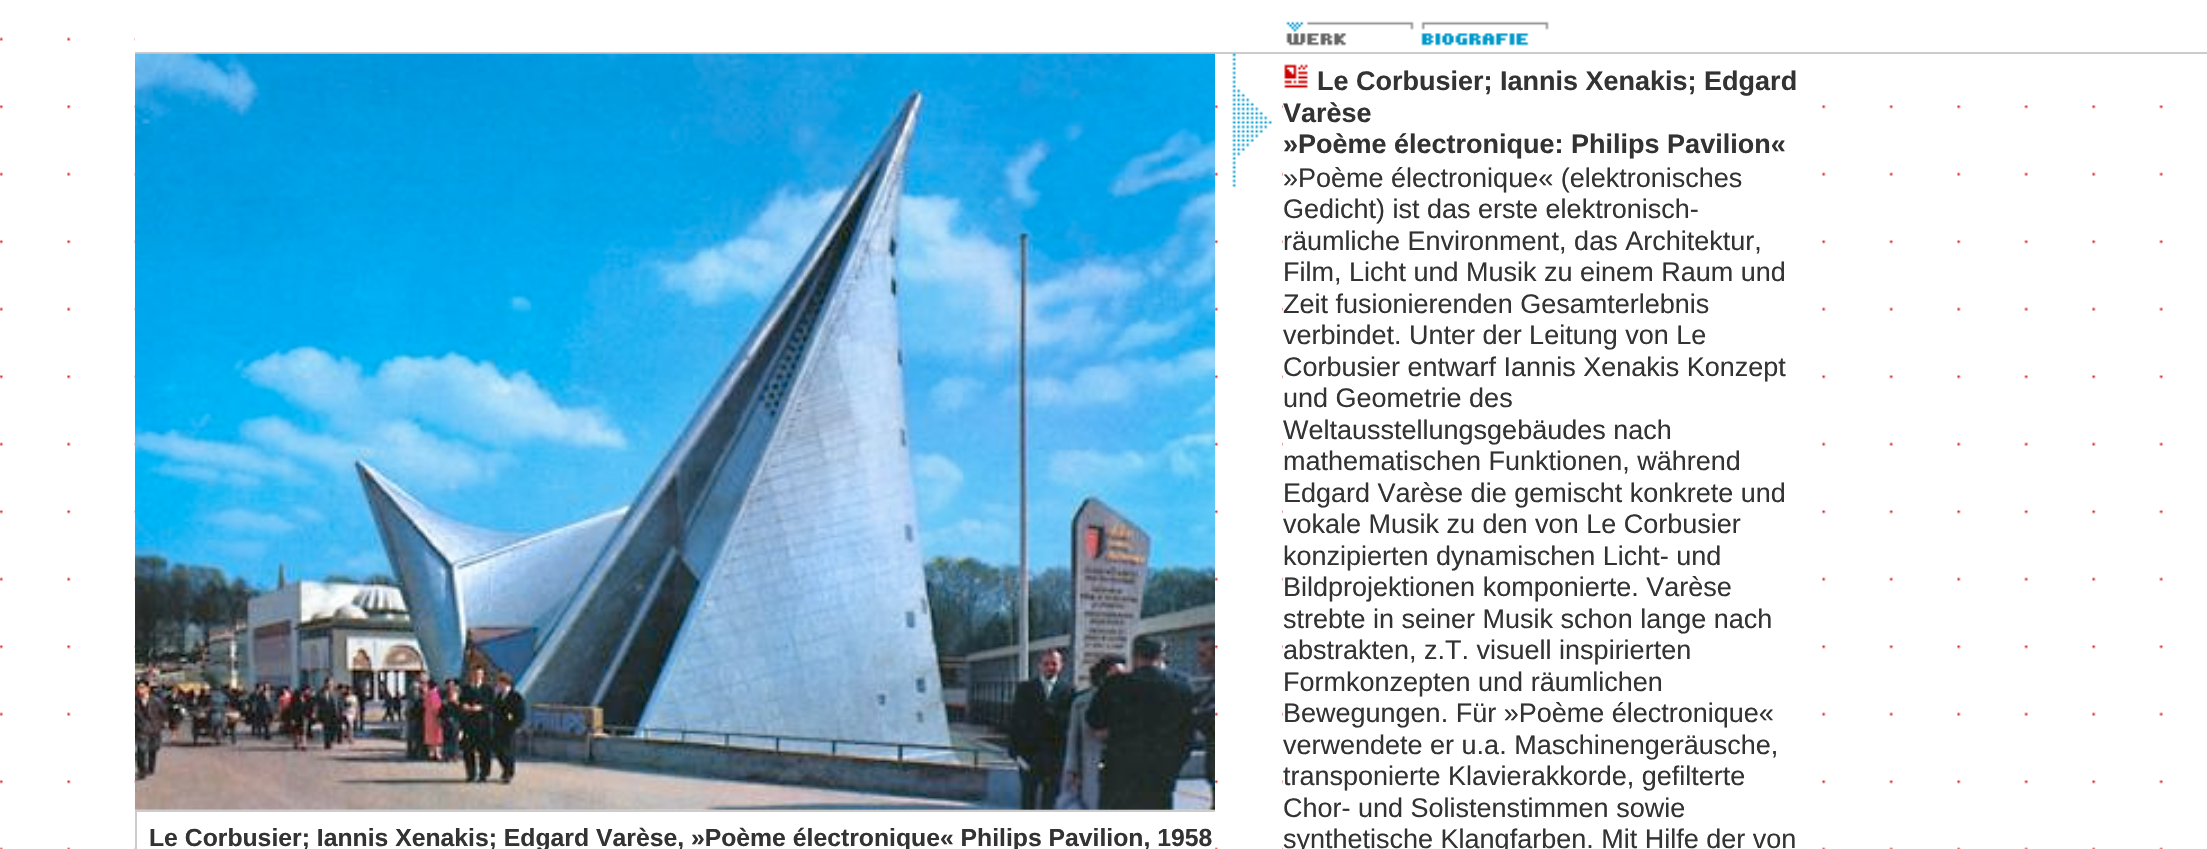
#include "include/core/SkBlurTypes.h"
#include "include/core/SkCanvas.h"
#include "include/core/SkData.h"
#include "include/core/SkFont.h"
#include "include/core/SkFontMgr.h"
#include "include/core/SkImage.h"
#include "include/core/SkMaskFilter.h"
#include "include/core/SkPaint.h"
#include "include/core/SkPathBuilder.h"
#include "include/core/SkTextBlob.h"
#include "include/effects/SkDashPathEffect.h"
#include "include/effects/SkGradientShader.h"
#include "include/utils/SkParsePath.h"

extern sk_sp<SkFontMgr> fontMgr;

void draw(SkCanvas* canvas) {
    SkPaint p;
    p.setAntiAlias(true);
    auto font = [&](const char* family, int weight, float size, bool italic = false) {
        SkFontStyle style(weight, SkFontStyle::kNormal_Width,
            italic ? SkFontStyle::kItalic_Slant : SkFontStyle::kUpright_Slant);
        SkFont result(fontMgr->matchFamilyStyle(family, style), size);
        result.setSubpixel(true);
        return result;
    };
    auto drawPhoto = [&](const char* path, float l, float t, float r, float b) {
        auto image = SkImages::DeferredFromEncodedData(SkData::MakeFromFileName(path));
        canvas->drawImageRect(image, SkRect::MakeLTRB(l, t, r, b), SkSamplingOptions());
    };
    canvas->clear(0xFFFFFFFF);
    drawPhoto("media/1.png", 0, 37, 2163, 849);
    p.setColor(0xFFFFFFFF);
    canvas->drawRect(SkRect::MakeLTRB(135, 37, 2163, 41), p);
    p.setColor(0xFFCCCCCC);
    canvas->drawRect(SkRect::MakeLTRB(135, 52, 2207, 54), p);
    drawPhoto("media/2.png", 1286, 21, 1414, 46);
    drawPhoto("media/3.png", 1421, 21, 1549, 46);
    drawPhoto("media/4.png", 1232, 53, 1272, 188);
    p.setColor(0xFFFFFFFF);
    canvas->drawRect(SkRect::MakeLTRB(135, 847, 1215, 849), p);
    p.setColor(0xFFCCCCCC);
    canvas->drawRect(SkRect::MakeLTRB(135, 810, 1215, 812), p);
    drawPhoto("media/5.png", 135, 53, 1215, 810);
    canvas->drawRect(SkRect::MakeLTRB(135, 812, 137, 849), p);
    auto font1 = font("Liberation Sans", 700, 24.75f);
    p.setColor(0xFF333333);
    canvas->drawString("Le Corbusier; Iannis Xenakis; Edgard Varèse, »Poème électronique« Philips Pavilion, 1958", 149, 846, font1, p);
    p.setColor(0xFFFFFFFF);
    canvas->drawRect(SkRect::MakeLTRB(1283, 105, 1758, 849), p);
    drawPhoto("media/6.png", 1284, 64, 1308, 89);
    auto font2 = font("Liberation Sans", 700, 27);
    p.setColor(0xFF333333);
    {
        const struct { const char* s; float x, y; } items[] = {
            {"Le Corbusier; Iannis Xenakis; Edgard", 1317, 90},
            {"Varèse", 1283, 122},
            {"»Poème électronique: Philips Pavilion«", 1283, 153},
        };
        for (auto [s, x, y] : items) {
            canvas->drawString(s, x, y, font2, p);
        }
    }
    auto font3 = font("Liberation Sans", 400, 27);
    {
        const struct { const char* s; float x, y; } items[] = {
            {"»Poème électronique« (elektronisches", 1283, 187},
            {"Gedicht) ist das erste elektronisch-", 1283, 218},
            {"räumliche Environment, das Architektur,", 1283, 250},
            {"Film, Licht und Musik zu einem Raum und", 1283, 281},
            {"Zeit fusionierenden Gesamterlebnis", 1283, 313},
            {"verbindet. Unter der Leitung von Le", 1283, 344},
            {"Corbusier entwarf Iannis Xenakis Konzept", 1283, 376},
            {"und Geometrie des", 1283, 407},
            {"Weltausstellungsgebäudes nach", 1283, 439},
            {"mathematischen Funktionen, während", 1283, 470},
            {"Edgard Varèse die gemischt konkrete und", 1283, 502},
            {"vokale Musik zu den von Le Corbusier", 1283, 533},
            {"konzipierten dynamischen Licht- und", 1283, 565},
            {"Bildprojektionen komponierte. Varèse", 1283, 596},
            {"strebte in seiner Musik schon lange nach", 1283, 628},
            {"abstrakten, z.T. visuell inspirierten", 1283, 659},
            {"Formkonzepten und räumlichen", 1283, 691},
            {"Bewegungen. Für »Poème électronique«", 1283, 722},
            {"verwendete er u.a. Maschinengeräusche,", 1283, 754},
            {"transponierte Klavierakkorde, gefilterte", 1283, 785},
            {"Chor- und Solistenstimmen sowie", 1283, 817},
            {"synthetische Klangfarben. Mit Hilfe der von", 1283, 848},
        };
        for (auto [s, x, y] : items) {
            canvas->drawString(s, x, y, font3, p);
        }
    }
}
